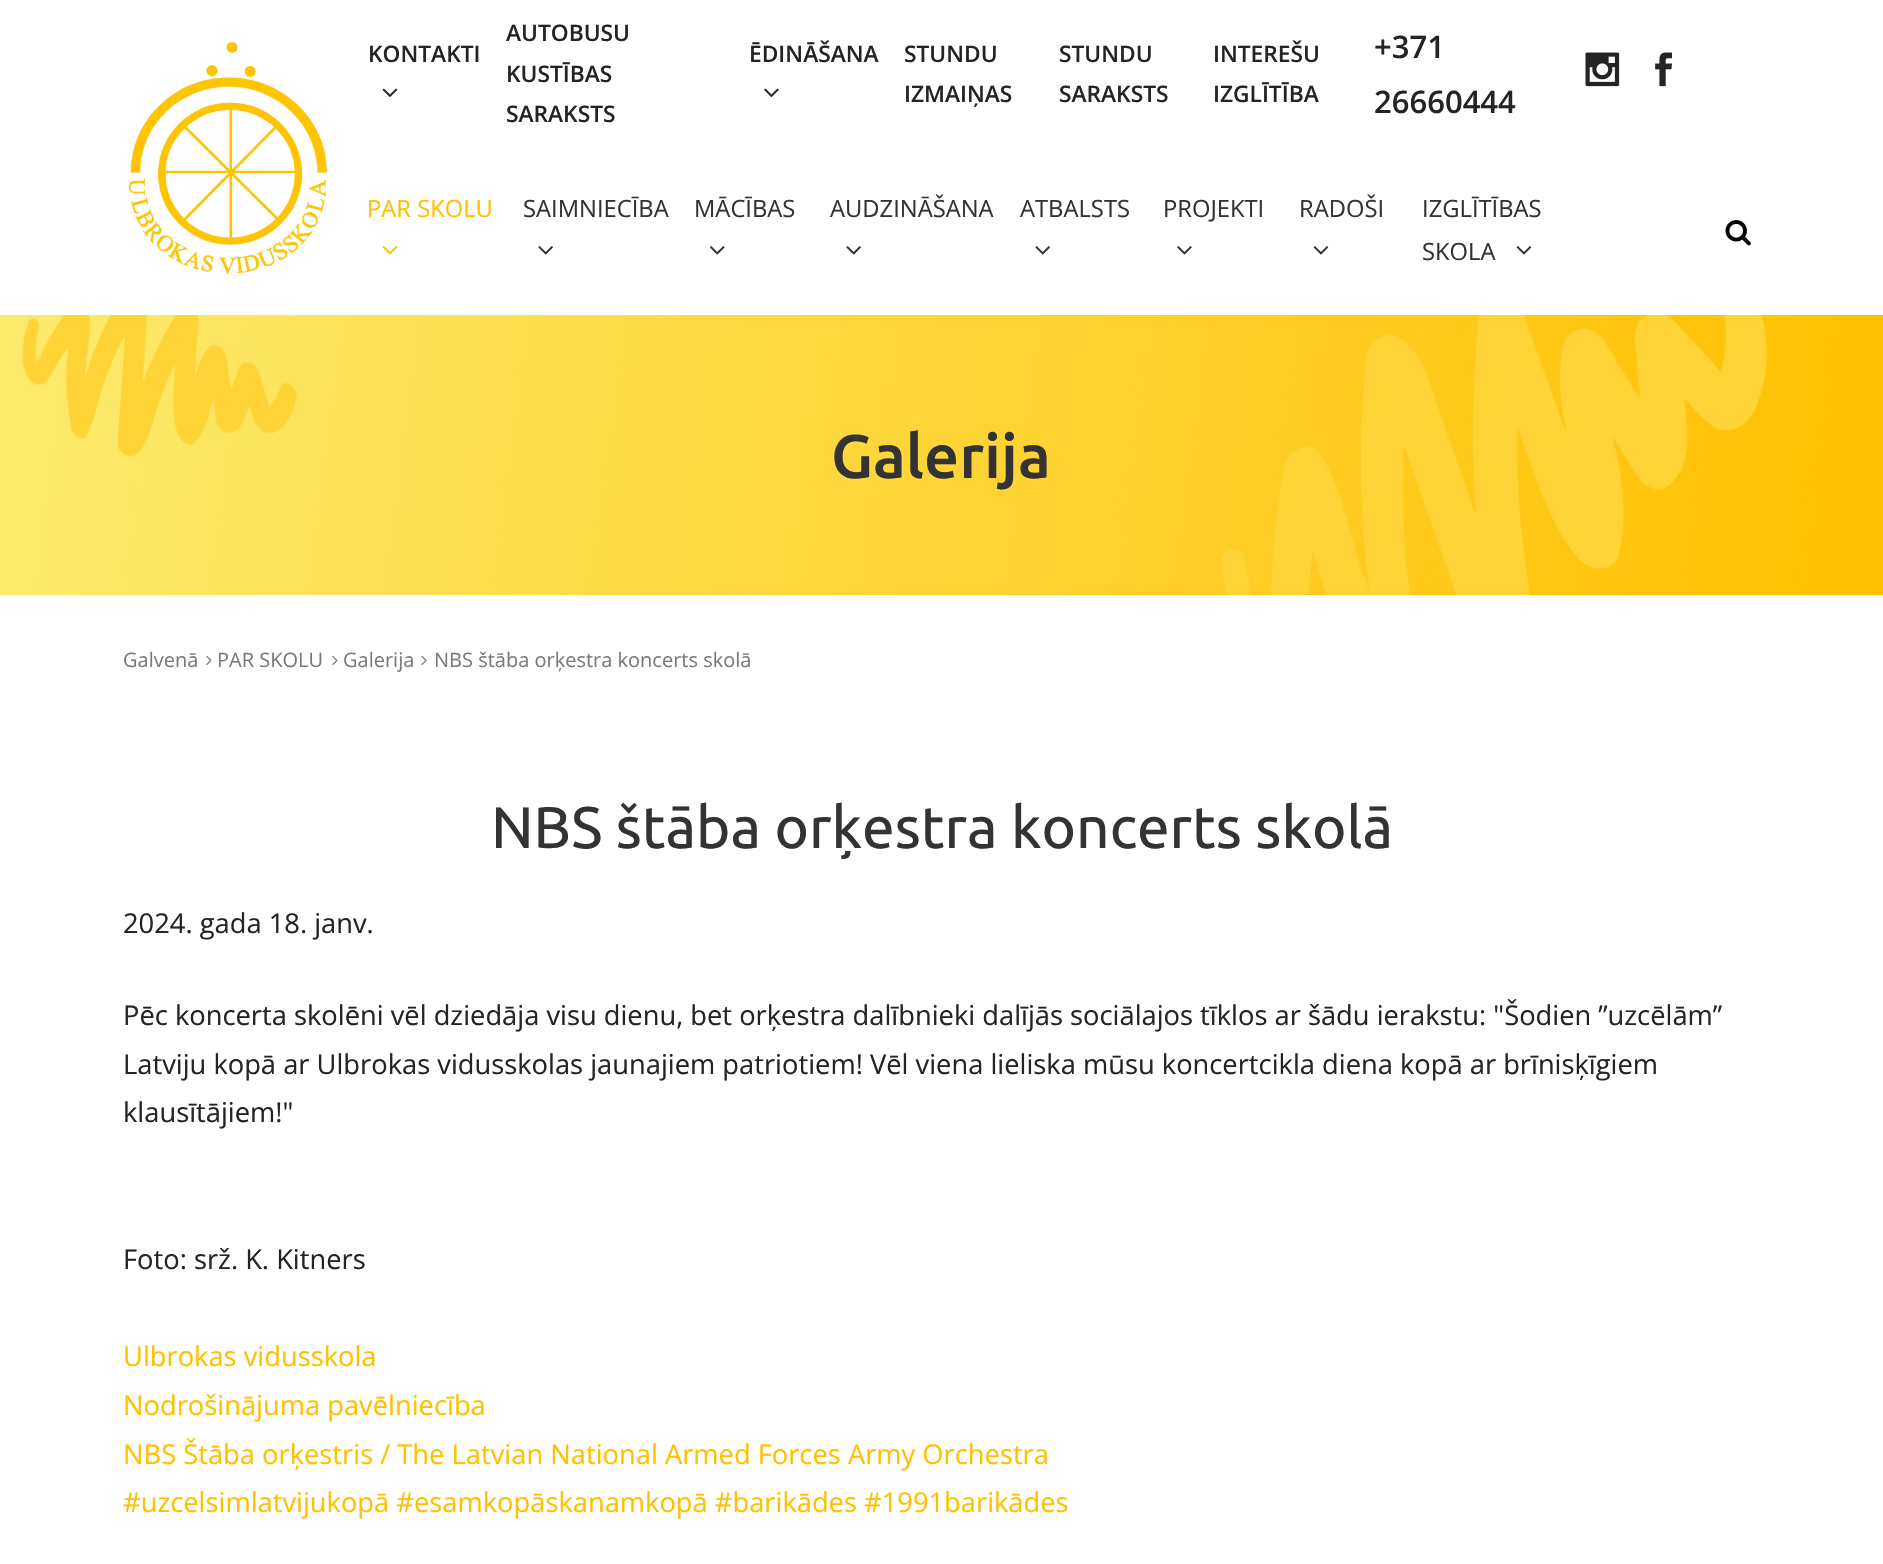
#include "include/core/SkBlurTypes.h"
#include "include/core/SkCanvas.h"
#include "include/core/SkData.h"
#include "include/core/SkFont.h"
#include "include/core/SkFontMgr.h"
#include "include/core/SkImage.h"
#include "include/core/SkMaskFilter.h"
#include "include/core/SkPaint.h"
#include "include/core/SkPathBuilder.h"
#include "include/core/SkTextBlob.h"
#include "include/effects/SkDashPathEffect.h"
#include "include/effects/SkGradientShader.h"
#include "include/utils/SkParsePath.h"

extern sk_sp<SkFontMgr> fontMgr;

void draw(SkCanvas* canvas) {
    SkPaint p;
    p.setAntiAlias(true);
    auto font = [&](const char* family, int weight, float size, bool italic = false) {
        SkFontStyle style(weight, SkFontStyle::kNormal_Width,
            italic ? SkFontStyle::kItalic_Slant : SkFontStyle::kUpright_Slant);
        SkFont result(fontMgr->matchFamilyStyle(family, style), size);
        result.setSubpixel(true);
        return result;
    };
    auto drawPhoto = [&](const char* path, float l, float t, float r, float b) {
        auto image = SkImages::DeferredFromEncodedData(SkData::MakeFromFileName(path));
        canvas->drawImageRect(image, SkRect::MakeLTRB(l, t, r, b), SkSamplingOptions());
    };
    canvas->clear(0xFFFFFFFF);
    drawPhoto("media/1.png", 128, 40, 328, 276);
    auto font1 = font("Open Sans", 600, 22.75f);
    p.setColor(0xFF242424);
    canvas->drawString("KONTAKTI", 368, 62, font1, p);
    drawPhoto("media/2.png", 382, 88, 398, 97);
    {
        const struct { const char* s; float x, y; } items[] = {
            {"AUTOBUSU", 506, 41},
            {"KUSTĪBAS", 506, 82},
            {"SARAKSTS", 506, 122},
            {"ĒDINĀŠANA", 749, 62},
        };
        for (auto [s, x, y] : items) {
            canvas->drawString(s, x, y, font1, p);
        }
    }
    drawPhoto("media/3.png", 764, 88, 779, 97);
    {
        const struct { const char* s; float x, y; } items[] = {
            {"STUNDU", 904, 62},
            {"IZMAIŅAS", 904, 102},
            {"STUNDU", 1059, 62},
            {"SARAKSTS", 1059, 102},
            {"INTEREŠU", 1213, 62},
            {"IZGLĪTĪBA", 1213, 102},
        };
        for (auto [s, x, y] : items) {
            canvas->drawString(s, x, y, font1, p);
        }
    }
    auto font2 = font("Open Sans", 600, 31);
    canvas->drawString("+371", 1374, 58, font2, p);
    canvas->drawString("26660444", 1374, 113, font2, p);
    drawPhoto("media/4.png", 1585, 52, 1620, 87);
    drawPhoto("media/5.png", 1655, 52, 1672, 87);
    auto font3 = font("Open Sans", 400, 23.75f);
    p.setColor(0xFFFFC000);
    canvas->drawString("PAR SKOLU", 367, 217, font3, p);
    drawPhoto("media/6.png", 382, 246, 398, 255);
    p.setColor(0xFF333333);
    canvas->drawString("SAIMNIECĪBA", 523, 217, font3, p);
    drawPhoto("media/7.png", 538, 246, 553, 255);
    canvas->drawString("MĀCĪBAS", 694, 217, font3, p);
    drawPhoto("media/8.png", 709, 246, 725, 255);
    canvas->drawString("AUDZINĀŠANA", 830, 217, font3, p);
    drawPhoto("media/7.png", 846, 246, 861, 255);
    canvas->drawString("ATBALSTS", 1020, 217, font3, p);
    drawPhoto("media/7.png", 1035, 246, 1050, 255);
    canvas->drawString("PROJEKTI", 1163, 217, font3, p);
    drawPhoto("media/9.png", 1177, 246, 1192, 255);
    canvas->drawString("RADOŠI", 1299, 217, font3, p);
    drawPhoto("media/10.png", 1313, 246, 1329, 255);
    canvas->drawString("IZGLĪTĪBAS", 1422, 217, font3, p);
    canvas->drawString("SKOLA", 1422, 260, font3, p);
    drawPhoto("media/10.png", 1516, 246, 1532, 255);
    drawPhoto("media/11.png", 1725, 220, 1751, 246);
    drawPhoto("media/12.png", 0, 315, 1883, 595);
    auto font4 = font("Ubuntu", 500, 61.5f);
    canvas->drawString("Galerija", 831, 478, font4, p);
    auto font5 = font("Open Sans", 400, 20);
    p.setColor(0xFF7A7A7A);
    canvas->drawString("Galvenā", 123, 667, font5, p);
    drawPhoto("media/13.png", 206, 655, 212, 665);
    canvas->drawString("PAR SKOLU", 217, 667, font5, p);
    drawPhoto("media/13.png", 332, 655, 338, 665);
    canvas->drawString("Galerija", 343, 667, font5, p);
    drawPhoto("media/14.png", 421, 655, 427, 665);
    canvas->drawString("NBS štāba orķestra koncerts skolā", 434, 667, font5, p);
    auto font6 = font("Ubuntu", 400, 58.5f);
    p.setColor(0xFF333333);
    canvas->drawString("NBS štāba orķestra koncerts skolā", 491, 848, font6, p);
    auto font7 = font("Open Sans", 400, 27.3f);
    p.setColor(0xFF242424);
    {
        const struct { const char* s; float x, y; } items[] = {
            {"2024. gada 18. janv.", 123, 933},
            {"Pēc koncerta skolēni vēl dziedāja visu dienu, bet orķestra dalībnieki dalījās sociālajos tīklos ar šādu ierakstu: \"Šodien ’’uzcēlām’’", 123, 1025},
            {"Latviju kopā ar Ulbrokas vidusskolas jaunajiem patriotiem! Vēl viena lieliska mūsu koncertcikla diena kopā ar brīnisķīgiem", 123, 1074},
            {"klausītājiem!\"", 123, 1122},
            {"Foto: srž. K. Kitners", 123, 1269},
        };
        for (auto [s, x, y] : items) {
            canvas->drawString(s, x, y, font7, p);
        }
    }
    p.setColor(0xFFFFC000);
    {
        const struct { const char* s; float x, y; } items[] = {
            {"Ulbrokas vidusskola", 123, 1366},
            {"Nodrošinājuma pavēlniecība", 123, 1415},
            {"NBS Štāba orķestris / The Latvian National Armed Forces Army Orchestra", 123, 1464},
            {"#uzcelsimlatvijukopā #esamkopāskanamkopā #barikādes #1991barikādes", 123, 1512},
        };
        for (auto [s, x, y] : items) {
            canvas->drawString(s, x, y, font7, p);
        }
    }
}
